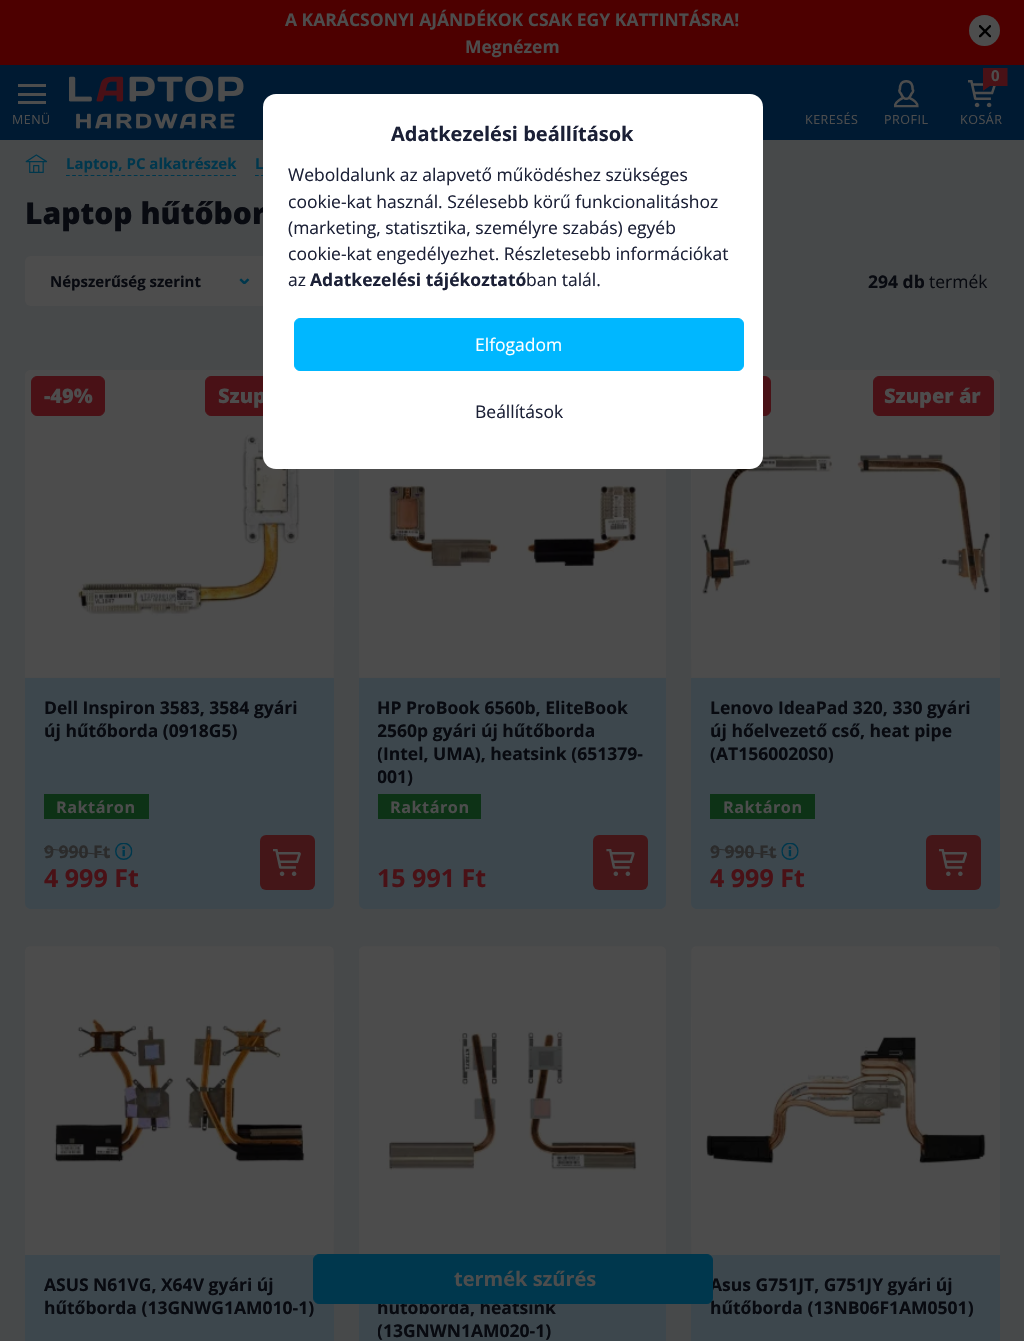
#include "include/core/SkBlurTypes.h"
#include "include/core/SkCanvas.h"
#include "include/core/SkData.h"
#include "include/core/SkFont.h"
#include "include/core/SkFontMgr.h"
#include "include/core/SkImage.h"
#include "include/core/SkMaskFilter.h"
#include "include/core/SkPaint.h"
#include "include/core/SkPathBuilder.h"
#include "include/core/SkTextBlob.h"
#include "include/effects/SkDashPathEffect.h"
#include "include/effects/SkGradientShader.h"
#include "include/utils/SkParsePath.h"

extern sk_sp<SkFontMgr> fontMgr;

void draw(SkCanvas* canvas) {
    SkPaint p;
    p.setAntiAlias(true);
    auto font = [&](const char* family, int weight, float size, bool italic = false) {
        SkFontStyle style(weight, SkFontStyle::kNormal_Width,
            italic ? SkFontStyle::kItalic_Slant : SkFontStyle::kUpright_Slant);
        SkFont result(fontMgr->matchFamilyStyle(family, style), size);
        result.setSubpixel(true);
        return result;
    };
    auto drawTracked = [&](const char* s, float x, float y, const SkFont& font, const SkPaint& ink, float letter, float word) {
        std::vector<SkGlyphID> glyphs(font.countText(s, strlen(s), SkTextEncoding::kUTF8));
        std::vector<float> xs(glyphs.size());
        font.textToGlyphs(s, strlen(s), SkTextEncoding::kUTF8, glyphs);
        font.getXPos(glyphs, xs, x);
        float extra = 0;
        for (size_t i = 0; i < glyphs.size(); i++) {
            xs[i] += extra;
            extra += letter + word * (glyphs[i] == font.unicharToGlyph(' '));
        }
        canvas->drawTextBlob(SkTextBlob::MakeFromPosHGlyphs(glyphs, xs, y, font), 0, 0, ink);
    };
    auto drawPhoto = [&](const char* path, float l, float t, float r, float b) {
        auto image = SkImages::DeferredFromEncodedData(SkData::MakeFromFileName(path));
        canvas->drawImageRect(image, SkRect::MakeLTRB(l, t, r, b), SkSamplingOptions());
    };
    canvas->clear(0xFF47494A);
    p.setColor(0xFF4D0000);
    canvas->drawRect(SkRect::MakeLTRB(0, 0, 1024, 65), p);
    auto font1 = font("Open Sans", 700, 17.5f);
    p.setColor(0xFF4D4D4D);
    canvas->drawString("A KARÁCSONYI AJÁNDÉKOK CSAK EGY KATTINTÁSRA!", 285, 26, font1, p);
    canvas->drawString("Megnézem", 465, 53, font1, p);
    canvas->drawCircle(984.5f, 30.5f, 15.5f, p);
    drawPhoto("media/1.png", 979, 25, 991, 38);
    {
        const struct { float l, t, r, b; SkColor color; } items[] = {
            {0, 65, 1024, 140, 0xFF001A32},
            {18, 84, 46, 87, 0xFF4D4D4D},
            {18, 93, 46, 96, 0xFF4D4D4D},
            {18, 101, 46, 104, 0xFF4D4D4D},
        };
        for (auto [l, t, r, b, color] : items) {
            p.setColor(color);
            canvas->drawRect(SkRect::MakeLTRB(l, t, r, b), p);
        }
    }
    auto font2 = font("Open Sans", 400, 12.5f);
    drawTracked("MENÜ", 12, 124, font2, p, 0.5f, 0);
    drawPhoto("media/2.png", 69, 76, 244, 129);
    drawTracked("KERESÉS", 805, 124, font2, p, 0.5f, 0);
    drawPhoto("media/3.png", 894, 80, 919, 108);
    drawTracked("PROFIL", 884, 124, font2, p, 0.5f, 0);
    drawPhoto("media/4.png", 968, 80, 996, 108);
    canvas->save();
    canvas->clipRect(SkRect::MakeLTRB(983, 68, 1008, 91));
    p.setColor(0xFF491116);
    canvas->drawPath(SkPathBuilder(SkPathFillType::kEvenOdd).moveTo(982.5f, 67.5f).lineTo(1007.5f, 67.5f).lineTo(1007.5f, 86).lineTo(990, 86).lineTo(982.5f, 91).close().detach(), p);
    canvas->restore();
    auto font3 = font("Open Sans", 700, 15);
    p.setColor(0xFF4D4D4D);
    canvas->drawString("0", 991, 81, font3, p);
    drawTracked("KOSÁR", 960, 124, font2, p, 0.5f, 0);
    drawPhoto("media/5.png", 25, 154, 48, 173);
    p.setStyle(SkPaint::kStroke_Style);
    p.setStrokeWidth(1.2f);
    p.setColor(0xFF00374D);
    p.setPathEffect(SkDashPathEffect::Make({{3.75f, 2.41f}}, 0));
    canvas->drawPath(SkPathBuilder().moveTo(66, 175.5f).lineTo(236, 175.5f).detach(), p);
    p.setPathEffect(nullptr);
    p.setStyle(SkPaint::kFill_Style);
    canvas->drawString("Laptop, PC alkatrészek", 66, 169, font3, p);
    p.setStyle(SkPaint::kStroke_Style);
    p.setPathEffect(SkDashPathEffect::Make({{3.75f, 2.38f}}, 0));
    canvas->drawPath(SkPathBuilder().moveTo(255, 175.5f).lineTo(381, 175.5f).detach(), p);
    p.setPathEffect(nullptr);
    p.setStyle(SkPaint::kFill_Style);
    canvas->drawString("L", 255, 169, font3, p);
    auto font4 = font("Open Sans", 800, 30);
    p.setColor(0xFF080A10);
    canvas->drawString("Laptop hűtőbor", 25, 224, font4, p);
    p.setColor(0xFF4D4D4D);
    canvas->drawRoundRect(SkRect::MakeLTRB(25, 256, 275, 306), 6, 6, p);
    p.setColor(0xFF080A10);
    canvas->drawString("Népszerűség szerint", 50, 287, font3, p);
    drawPhoto("media/6.png", 239, 278, 250, 284);
    canvas->drawString("294 db", 868, 288, font1, p);
    auto font5 = font("Open Sans", 400, 17.5f);
    canvas->drawString("termék", 929, 288, font5, p);
    {
        const SkColor colors[] = {0xFF4B4B4B, 0xFF4D4D4D, 0xFF4D4D4D, 0xFF4B4B4B};
        const float stops[] = {0, 0.3f, 0.7f, 1};
        const SkPoint ends[] = {{177, 367}, {182, 680}};
        p.setShader(SkGradientShader::MakeLinear(ends, colors, stops, 4, SkTileMode::kClamp));
        p.setAlpha(255);
    }
    canvas->drawPath(SkPathBuilder().moveTo(31, 370).lineTo(328, 370).cubicTo(331.5f, 370, 334, 372.5f, 334, 376).lineTo(334, 678).lineTo(25, 678).lineTo(25, 376).cubicTo(25, 372.5f, 27.5f, 370, 31, 370).close().detach(), p);
    drawPhoto("media/7.png", 25, 370, 333, 677);
    p.setShader(nullptr);
    p.setColor(0xFF491116);
    canvas->drawRoundRect(SkRect::MakeLTRB(31.5f, 376.5f, 104.5f, 415.5f), 5.5f, 5.5f, p);
    p.setStyle(SkPaint::kStroke_Style);
    p.setStrokeWidth(1);
    canvas->drawRoundRect(SkRect::MakeLTRB(31.5f, 376.5f, 104.5f, 415.5f), 5.5f, 5.5f, p);
    auto font6 = font("Open Sans", 800, 20);
    p.setStyle(SkPaint::kFill_Style);
    p.setColor(0xFF4D4D4D);
    canvas->drawString("-49%", 44, 403, font6, p);
    p.setColor(0xFF491116);
    canvas->drawRoundRect(SkRect::MakeLTRB(205.5f, 376.5f, 327.5f, 415.5f), 5.5f, 5.5f, p);
    p.setStyle(SkPaint::kStroke_Style);
    canvas->drawRoundRect(SkRect::MakeLTRB(205.5f, 376.5f, 327.5f, 415.5f), 5.5f, 5.5f, p);
    p.setStyle(SkPaint::kFill_Style);
    p.setColor(0xFF4D4D4D);
    canvas->drawString("Szup", 218, 403, font6, p);
    p.setColor(0xFF3D474D);
    canvas->drawPath(SkPathBuilder().moveTo(25, 678).lineTo(334, 678).lineTo(334, 903).cubicTo(334, 906.5f, 331.5f, 909, 328, 909).lineTo(31, 909).cubicTo(27.5f, 909, 25, 906.5f, 25, 903).close().detach(), p);
    p.setColor(0xFF080A10);
    canvas->drawString("Dell Inspiron 3583, 3584 gyári", 44, 714, font1, p);
    canvas->drawString("új hűtőborda (0918G5)", 44, 737, font1, p);
    p.setColor(0xFF0D3216);
    canvas->drawRect(SkRect::MakeLTRB(44, 794, 149, 819), p);
    auto font7 = font("Open Sans", 700, 16.25f);
    p.setColor(0xFF4D4D4D);
    drawTracked("Raktáron", 56, 813, font7, p, 0.5f, 0);
    p.setColor(0xFF2B2B2B);
    canvas->drawString("9 990 Ft", 44, 858, font1, p);
    canvas->drawPath(SkPathBuilder().moveTo(44, 848).lineTo(110, 855).lineTo(110, 856).lineTo(44, 849).close().detach(), p);
    drawPhoto("media/8.png", 115, 843, 133, 860);
    auto font8 = font("Open Sans", 700, 25);
    p.setColor(0xFF491116);
    canvas->drawString("4 999 Ft", 44, 887, font8, p);
    p.setColor(0xFF441618);
    canvas->drawRoundRect(SkRect::MakeLTRB(260, 835, 315, 890), 6, 6, p);
    drawPhoto("media/9.png", 273, 849, 301, 876);
    {
        const SkColor colors[] = {0xFF4B4B4B, 0xFF4D4D4D, 0xFF4D4D4D, 0xFF4B4B4B};
        const float stops[] = {0, 0.3f, 0.7f, 1};
        const SkPoint ends[] = {{510, 367}, {515, 680}};
        p.setShader(SkGradientShader::MakeLinear(ends, colors, stops, 4, SkTileMode::kClamp));
        p.setAlpha(255);
    }
    canvas->drawRect(SkRect::MakeLTRB(359, 677, 666, 678), p);
    drawPhoto("media/10.png", 359, 469, 666, 677);
    p.setShader(nullptr);
    p.setColor(0xFF3D474D);
    canvas->drawPath(SkPathBuilder().moveTo(359, 678).lineTo(666, 678).lineTo(666, 903).cubicTo(666, 906.5f, 663.5f, 909, 660, 909).lineTo(365, 909).cubicTo(361.5f, 909, 359, 906.5f, 359, 903).close().detach(), p);
    p.setColor(0xFF080A10);
    canvas->drawString("HP ProBook 6560b, EliteBook", 377, 714, font1, p);
    canvas->save();
    canvas->clipRect(SkRect::MakeLTRB(378, 696, 648, 788));
    {
        const struct { const char* s; float x, y; } items[] = {
            {"2560p gyári új hűtőborda", 377, 737},
            {"(Intel, UMA), heatsink (651379-", 377, 760},
            {"001)", 377, 783},
        };
        for (auto [s, x, y] : items) {
            canvas->drawString(s, x, y, font1, p);
        }
    }
    canvas->restore();
    p.setColor(0xFF0D3216);
    canvas->drawRect(SkRect::MakeLTRB(378, 794, 481, 819), p);
    p.setColor(0xFF4D4D4D);
    drawTracked("Raktáron", 390, 813, font7, p, 0.5f, 0);
    p.setColor(0xFF491116);
    canvas->drawString("15 991 Ft", 377, 887, font8, p);
    p.setColor(0xFF441618);
    canvas->drawRoundRect(SkRect::MakeLTRB(593, 835, 648, 890), 6, 6, p);
    drawPhoto("media/11.png", 606, 849, 635, 876);
    {
        const SkColor colors[] = {0xFF4B4B4B, 0xFF4D4D4D, 0xFF4D4D4D, 0xFF4B4B4B};
        const float stops[] = {0, 0.3f, 0.7f, 1};
        const SkPoint ends[] = {{843, 367}, {848, 680}};
        p.setShader(SkGradientShader::MakeLinear(ends, colors, stops, 4, SkTileMode::kClamp));
        p.setAlpha(255);
    }
    canvas->drawPath(SkPathBuilder().moveTo(697, 370).lineTo(994, 370).cubicTo(997.5f, 370, 1000, 372.5f, 1000, 376).lineTo(1000, 678).lineTo(691, 678).lineTo(691, 376).cubicTo(691, 372.5f, 693.5f, 370, 697, 370).close().detach(), p);
    drawPhoto("media/12.png", 692, 370, 1000, 677);
    p.setShader(nullptr);
    p.setColor(0xFF491116);
    canvas->drawRoundRect(SkRect::MakeLTRB(698.5f, 376.5f, 770.5f, 415.5f), 5.5f, 5.5f, p);
    p.setStyle(SkPaint::kStroke_Style);
    canvas->drawRoundRect(SkRect::MakeLTRB(698.5f, 376.5f, 770.5f, 415.5f), 5.5f, 5.5f, p);
    p.setStyle(SkPaint::kFill_Style);
    canvas->drawRoundRect(SkRect::MakeLTRB(873.5f, 376.5f, 993.5f, 415.5f), 5.5f, 5.5f, p);
    p.setStyle(SkPaint::kStroke_Style);
    canvas->drawRoundRect(SkRect::MakeLTRB(873.5f, 376.5f, 993.5f, 415.5f), 5.5f, 5.5f, p);
    p.setStyle(SkPaint::kFill_Style);
    p.setColor(0xFF4D4D4D);
    canvas->drawString("Szuper ár", 884, 403, font6, p);
    p.setColor(0xFF3D474D);
    canvas->drawPath(SkPathBuilder().moveTo(691, 678).lineTo(1000, 678).lineTo(1000, 903).cubicTo(1000, 906.5f, 997.5f, 909, 994, 909).lineTo(697, 909).cubicTo(693.5f, 909, 691, 906.5f, 691, 903).close().detach(), p);
    p.setColor(0xFF080A10);
    {
        const struct { const char* s; float x, y; } items[] = {
            {"Lenovo IdeaPad 320, 330 gyári", 710, 714},
            {"új hőelvezető cső, heat pipe", 710, 737},
            {"(AT1560020S0)", 710, 760},
        };
        for (auto [s, x, y] : items) {
            canvas->drawString(s, x, y, font1, p);
        }
    }
    p.setColor(0xFF0D3216);
    canvas->drawRect(SkRect::MakeLTRB(710, 794, 815, 819), p);
    p.setColor(0xFF4D4D4D);
    drawTracked("Raktáron", 723, 813, font7, p, 0.5f, 0);
    p.setColor(0xFF2B2B2B);
    canvas->drawString("9 990 Ft", 710, 858, font1, p);
    canvas->drawPath(SkPathBuilder().moveTo(711, 848).lineTo(777, 855).lineTo(776, 856).lineTo(711, 849).close().detach(), p);
    drawPhoto("media/13.png", 781, 843, 799, 860);
    p.setColor(0xFF491116);
    canvas->drawString("4 999 Ft", 710, 887, font8, p);
    p.setColor(0xFF441618);
    canvas->drawRoundRect(SkRect::MakeLTRB(926, 835, 981, 890), 6, 6, p);
    drawPhoto("media/14.png", 939, 849, 967, 876);
    {
        const SkColor colors[] = {0xFF4B4B4B, 0xFF4D4D4D, 0xFF4D4D4D, 0xFF4B4B4B};
        const float stops[] = {0, 0.3f, 0.7f, 1};
        const SkPoint ends[] = {{177, 944}, {182, 1258}};
        p.setShader(SkGradientShader::MakeLinear(ends, colors, stops, 4, SkTileMode::kClamp));
        p.setAlpha(255);
    }
    canvas->drawPath(SkPathBuilder().moveTo(31, 946).lineTo(328, 946).cubicTo(331.5f, 946, 334, 948.5f, 334, 952).lineTo(334, 1255).lineTo(25, 1255).lineTo(25, 952).cubicTo(25, 948.5f, 27.5f, 946, 31, 946).close().detach(), p);
    drawPhoto("media/15.png", 25, 947, 333, 1255);
    p.setShader(nullptr);
    p.setColor(0xFF3D474D);
    canvas->drawRect(SkRect::MakeLTRB(25, 1255, 334, 1341), p);
    p.setColor(0xFF080A10);
    canvas->drawString("ASUS N61VG, X64V gyári új", 44, 1291, font1, p);
    canvas->drawString("hűtőborda (13GNWG1AM010-1)", 44, 1314, font1, p);
    {
        const SkColor colors[] = {0xFF4B4B4B, 0xFF4D4D4D, 0xFF4D4D4D, 0xFF4B4B4B};
        const float stops[] = {0, 0.3f, 0.7f, 1};
        const SkPoint ends[] = {{510, 944}, {515, 1258}};
        p.setShader(SkGradientShader::MakeLinear(ends, colors, stops, 4, SkTileMode::kClamp));
        p.setAlpha(255);
    }
    canvas->drawPath(SkPathBuilder().moveTo(365, 946).lineTo(660, 946).cubicTo(663.5f, 946, 666, 948.5f, 666, 952).lineTo(666, 1255).lineTo(359, 1255).lineTo(359, 952).cubicTo(359, 948.5f, 361.5f, 946, 365, 946).close().detach(), p);
    drawPhoto("media/16.png", 359, 947, 666, 1254);
    p.setShader(nullptr);
    p.setColor(0xFF3D474D);
    canvas->drawRect(SkRect::MakeLTRB(359, 1304, 666, 1341), p);
    p.setColor(0xFF080A10);
    canvas->drawString("hűtőborda, heatsink", 377, 1314, font1, p);
    canvas->save();
    canvas->clipRect(SkRect::MakeLTRB(378, 1274, 648, 1341));
    canvas->drawString("(13GNWN1AM020-1)", 377, 1337, font1, p);
    canvas->restore();
    {
        const SkColor colors[] = {0xFF4B4B4B, 0xFF4D4D4D, 0xFF4D4D4D, 0xFF4B4B4B};
        const float stops[] = {0, 0.3f, 0.7f, 1};
        const SkPoint ends[] = {{843, 944}, {848, 1258}};
        p.setShader(SkGradientShader::MakeLinear(ends, colors, stops, 4, SkTileMode::kClamp));
        p.setAlpha(255);
    }
    canvas->drawPath(SkPathBuilder().moveTo(697, 946).lineTo(994, 946).cubicTo(997.5f, 946, 1000, 948.5f, 1000, 952).lineTo(1000, 1255).lineTo(691, 1255).lineTo(691, 952).cubicTo(691, 948.5f, 693.5f, 946, 697, 946).close().detach(), p);
    drawPhoto("media/17.png", 692, 947, 1000, 1255);
    p.setShader(nullptr);
    p.setColor(0xFF3D474D);
    canvas->drawRect(SkRect::MakeLTRB(691, 1255, 1000, 1341), p);
    p.setColor(0xFF080A10);
    canvas->drawString("Asus G751JT, G751JY gyári új", 710, 1291, font1, p);
    canvas->drawString("hűtőborda (13NB06F1AM0501)", 710, 1314, font1, p);
    p.setColor(0xFF00374D);
    canvas->drawRoundRect(SkRect::MakeLTRB(313.5f, 1254.5f, 712.5f, 1303.5f), 5.5f, 5.5f, p);
    p.setStyle(SkPaint::kStroke_Style);
    canvas->drawRoundRect(SkRect::MakeLTRB(313.5f, 1254.5f, 712.5f, 1303.5f), 5.5f, 5.5f, p);
    auto font9 = font("Open Sans", 700, 20);
    p.setStyle(SkPaint::kFill_Style);
    p.setColor(0xFF4D4D4D);
    canvas->drawString("termék szűrés", 454, 1286, font9, p);
    p.setColor(0xFFFFFFFF);
    canvas->drawRoundRect(SkRect::MakeLTRB(263, 94, 763, 469), 13, 13, p);
    p.setColor(0xFF1B2036);
    canvas->drawString("Adatkezelési beállítások", 391, 141, font9, p);
    {
        const struct { const char* s; float x, y; } items[] = {
            {"Weboldalunk az alapvető működéshez szükséges", 288, 181},
            {"cookie-kat használ. Szélesebb körű funkcionalitáshoz", 288, 208},
            {"(marketing, statisztika, személyre szabás) egyéb", 288, 234},
            {"cookie-kat engedélyezhet. Részletesebb információkat", 288, 260},
            {"az", 288, 286},
        };
        for (auto [s, x, y] : items) {
            canvas->drawString(s, x, y, font5, p);
        }
    }
    canvas->drawString("Adatkezelési tájékoztató", 310, 286, font1, p);
    canvas->drawString("ban talál.", 526, 286, font5, p);
    p.setColor(0xFF00B7FF);
    canvas->drawRoundRect(SkRect::MakeLTRB(294.5f, 318.5f, 743.5f, 370.5f), 5.5f, 5.5f, p);
    p.setStyle(SkPaint::kStroke_Style);
    canvas->drawRoundRect(SkRect::MakeLTRB(294.5f, 318.5f, 743.5f, 370.5f), 5.5f, 5.5f, p);
    p.setStyle(SkPaint::kFill_Style);
    p.setColor(0xFFFFFFFF);
    canvas->drawString("Elfogadom", 475, 351, font5, p);
    p.setColor(0xFF1B2036);
    canvas->drawString("Beállítások", 475, 418, font5, p);
}
